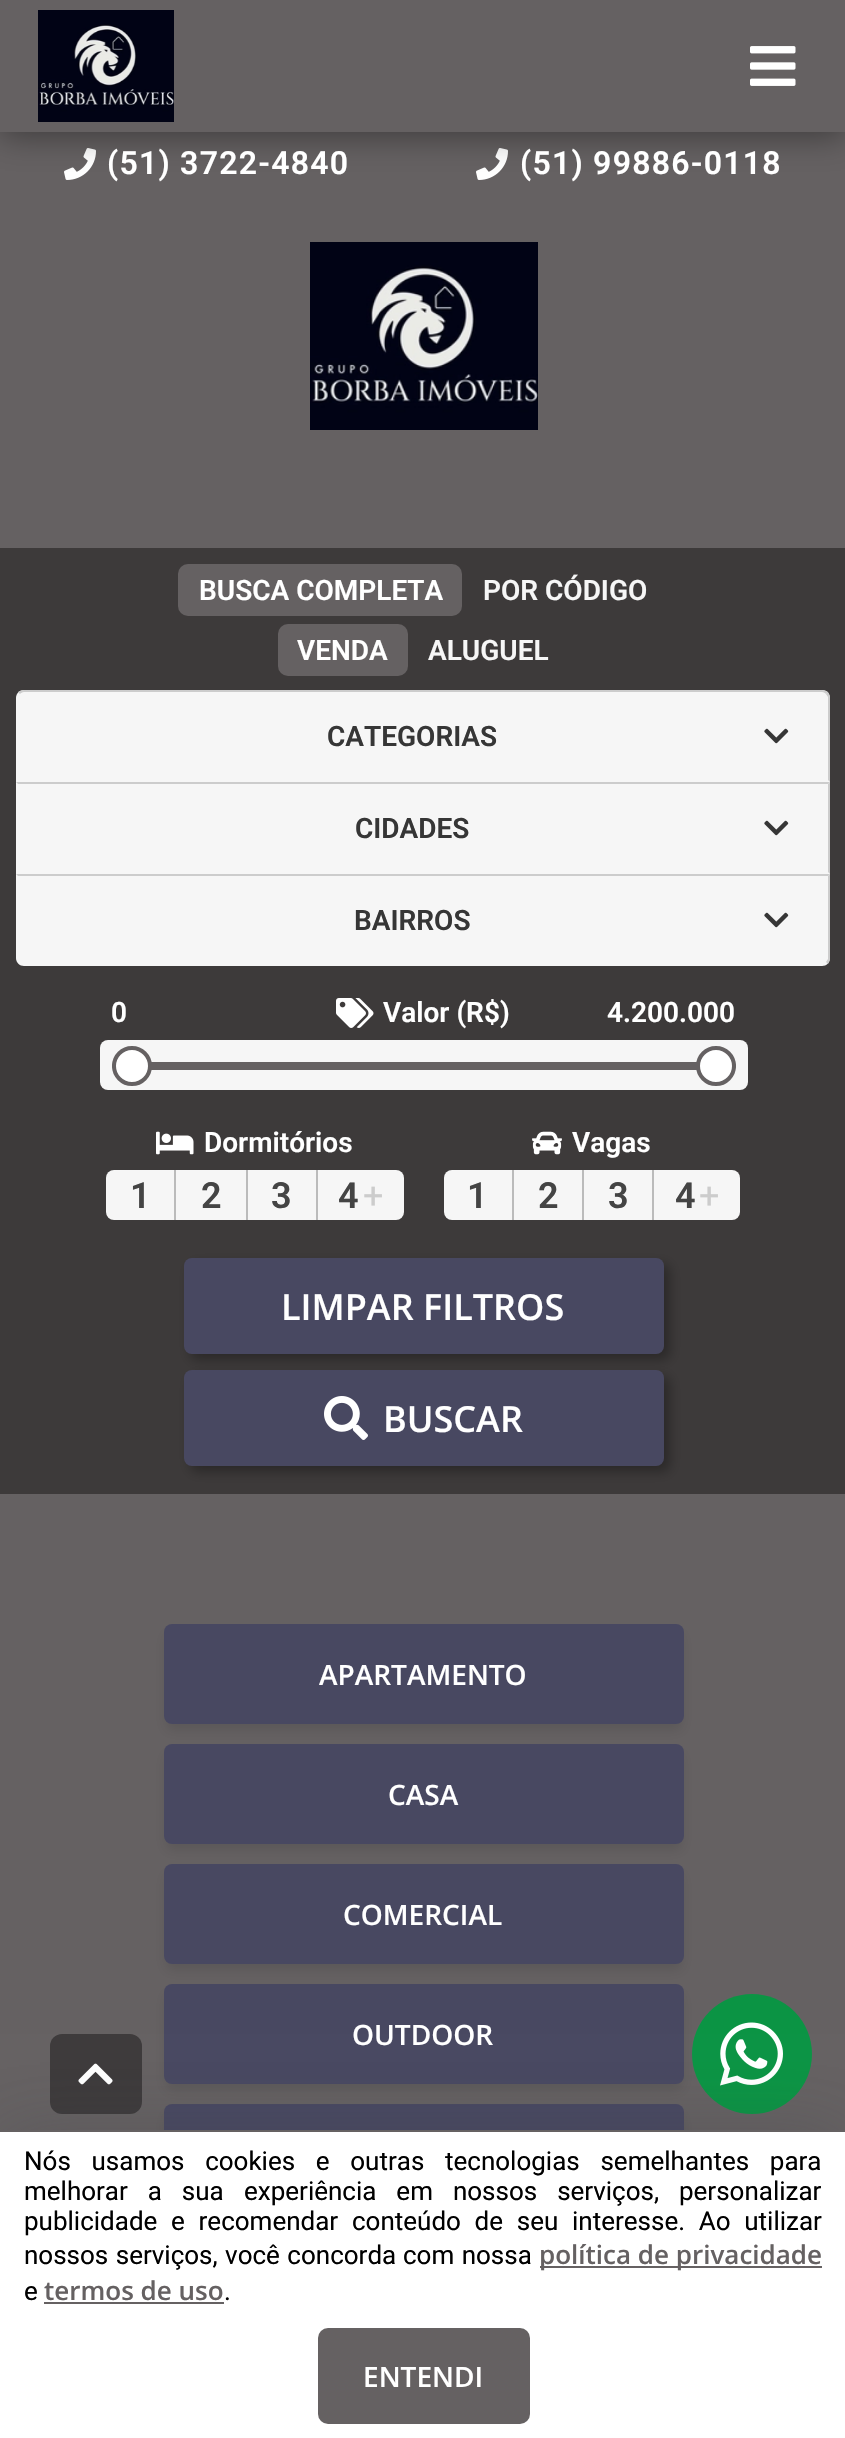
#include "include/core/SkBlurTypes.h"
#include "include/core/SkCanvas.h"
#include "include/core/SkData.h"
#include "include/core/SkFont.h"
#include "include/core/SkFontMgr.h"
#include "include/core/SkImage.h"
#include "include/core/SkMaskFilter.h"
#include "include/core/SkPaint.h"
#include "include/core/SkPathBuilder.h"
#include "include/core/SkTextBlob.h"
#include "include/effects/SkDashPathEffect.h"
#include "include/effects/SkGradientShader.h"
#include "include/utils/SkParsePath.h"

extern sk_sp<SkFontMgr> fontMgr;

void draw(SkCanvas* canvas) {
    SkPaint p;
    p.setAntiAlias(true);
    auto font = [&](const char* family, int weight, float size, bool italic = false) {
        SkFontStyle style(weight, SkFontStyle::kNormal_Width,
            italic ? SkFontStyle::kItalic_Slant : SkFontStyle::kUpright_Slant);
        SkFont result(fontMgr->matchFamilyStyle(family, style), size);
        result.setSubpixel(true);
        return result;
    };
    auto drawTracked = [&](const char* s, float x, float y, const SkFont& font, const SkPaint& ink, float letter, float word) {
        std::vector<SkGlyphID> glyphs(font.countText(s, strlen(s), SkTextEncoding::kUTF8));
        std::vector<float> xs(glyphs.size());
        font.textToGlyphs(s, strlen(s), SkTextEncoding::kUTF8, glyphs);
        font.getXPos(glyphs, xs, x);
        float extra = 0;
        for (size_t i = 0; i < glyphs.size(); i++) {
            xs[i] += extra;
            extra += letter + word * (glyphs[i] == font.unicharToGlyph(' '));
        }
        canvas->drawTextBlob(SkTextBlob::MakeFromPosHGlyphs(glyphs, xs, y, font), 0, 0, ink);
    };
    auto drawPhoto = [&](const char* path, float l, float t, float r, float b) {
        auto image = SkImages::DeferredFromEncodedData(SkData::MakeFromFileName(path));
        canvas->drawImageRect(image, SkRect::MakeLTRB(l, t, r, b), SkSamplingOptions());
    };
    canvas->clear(0xFF656162);
    drawPhoto("media/3.png", 64, 148, 96, 180);
    drawPhoto("media/3.png", 476, 148, 508, 180);
    p.setColor(0x66000000);
    p.setMaskFilter(SkMaskFilter::MakeBlur(kNormal_SkBlurStyle, 16));
    canvas->drawRect(SkRect::MakeLTRB(0, 4, 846, 136), p);
    p.setMaskFilter(nullptr);
    p.setColor(0xFF656162);
    canvas->drawRect(SkRect::MakeLTRB(0, 0, 845, 132), p);
    drawPhoto("media/1.png", 38, 10, 174, 122);
    drawPhoto("media/2.png", 750, 46, 796, 86);
    auto font1 = font("Roboto", 600, 32);
    p.setColor(0xFFFFFFFF);
    drawTracked("(51) 3722-4840", 107, 174, font1, p, 1.25f, 0);
    drawTracked("(51) 99886-0118", 520, 174, font1, p, 1.25f, 0);
    drawPhoto("media/4.png", 310, 242, 538, 430);
    p.setColor(0xFF3D3A3A);
    canvas->drawRect(SkRect::MakeLTRB(0, 548, 845, 1494), p);
    p.setColor(0xFF656162);
    canvas->drawRoundRect(SkRect::MakeLTRB(178, 564, 462, 616), 10, 10, p);
    auto font2 = font("Roboto", 600, 28);
    p.setColor(0xFFFFFFFF);
    canvas->drawString("BUSCA COMPLETA", 199, 600, font2, p);
    p.setColor(0xFFF6F6F6);
    canvas->drawString("POR CÓDIGO", 483, 600, font2, p);
    p.setColor(0xFF656162);
    canvas->drawRoundRect(SkRect::MakeLTRB(278, 624, 408, 676), 10, 10, p);
    p.setColor(0xFFFFFFFF);
    canvas->drawString("VENDA", 297, 660, font2, p);
    p.setColor(0xFFF6F6F6);
    canvas->drawString("ALUGUEL", 428, 660, font2, p);
    canvas->drawPath(SkPathBuilder().moveTo(24, 690).lineTo(822, 690).cubicTo(826.5f, 690, 830, 693.5f, 830, 698).lineTo(830, 782).lineTo(16, 782).lineTo(16, 698).cubicTo(16, 693.5f, 19.5f, 690, 24, 690).close().detach(), p);
    p.setColor(0xFFCCCCCC);
    canvas->drawPath(SkPathBuilder().moveTo(24, 690).cubicTo(22, 690, 20, 691, 18, 692).lineTo(20, 694).cubicTo(21, 693, 22, 692, 24, 692).lineTo(822, 692).cubicTo(824, 692, 825, 693, 826, 694).lineTo(828, 692).cubicTo(826, 691, 824, 690, 822, 690).close().detach(), p);
    canvas->drawPath(SkPathBuilder().moveTo(830, 782).lineTo(830, 698).cubicTo(830, 696, 829, 694, 828, 692).lineTo(826, 694).lineTo(828, 697).lineTo(828, 780).close().detach(), p);
    p.setColor(0xFF363636);
    canvas->drawString("CATEGORIAS", 327, 746, font2, p);
    drawPhoto("media/5.png", 764, 728, 789, 744);
    p.setColor(0xFFF6F6F6);
    canvas->drawRect(SkRect::MakeLTRB(16, 782, 830, 874), p);
    p.setColor(0xFFCCCCCC);
    canvas->drawPath(SkPathBuilder().moveTo(16, 782).lineTo(830, 782).lineTo(828, 784).lineTo(18, 784).close().detach(), p);
    canvas->drawPath(SkPathBuilder().moveTo(830, 782).lineTo(830, 874).lineTo(828, 872).lineTo(828, 784).close().detach(), p);
    p.setColor(0xFF363636);
    canvas->drawString("CIDADES", 355, 838, font2, p);
    drawPhoto("media/5.png", 764, 820, 789, 836);
    p.setColor(0xFFF6F6F6);
    canvas->drawPath(SkPathBuilder().moveTo(16, 874).lineTo(830, 874).lineTo(830, 958).cubicTo(830, 962.5f, 826.5f, 966, 822, 966).lineTo(24, 966).cubicTo(19.5f, 966, 16, 962.5f, 16, 958).close().detach(), p);
    p.setColor(0xFFCCCCCC);
    canvas->drawPath(SkPathBuilder().moveTo(16, 874).lineTo(18, 876).lineTo(828, 876).lineTo(830, 874).close().detach(), p);
    canvas->drawPath(SkPathBuilder().moveTo(830, 874).lineTo(828, 876).lineTo(828, 959).lineTo(826, 962).lineTo(828, 964).cubicTo(829, 962, 830, 960, 830, 958).close().detach(), p);
    p.setColor(0xFF363636);
    canvas->drawString("BAIRROS", 354, 930, font2, p);
    drawPhoto("media/5.png", 764, 912, 789, 928);
    p.setColor(0xFFFFFFFF);
    canvas->drawString("0", 111, 1022, font2, p);
    drawPhoto("media/6.png", 336, 998, 374, 1028);
    canvas->drawString("Valor (R$)", 383, 1022, font2, p);
    canvas->drawString("4.200.000", 607, 1022, font2, p);
    p.setColor(0xFFF6F6F6);
    canvas->drawRoundRect(SkRect::MakeLTRB(100, 1040, 748, 1090), 8, 8, p);
    p.setColor(0xFF656162);
    canvas->drawRoundRect(SkRect::MakeLTRB(112, 1062, 736, 1070), 4, 4, p);
    p.setColor(0xFFFFFFFF);
    canvas->drawCircle(716, 1066, 18, p);
    p.setStyle(SkPaint::kStroke_Style);
    p.setStrokeWidth(4);
    p.setColor(0xFF656162);
    canvas->drawCircle(716, 1066, 18, p);
    p.setStyle(SkPaint::kFill_Style);
    p.setColor(0xFFFFFFFF);
    canvas->drawCircle(132, 1066, 18, p);
    p.setStyle(SkPaint::kStroke_Style);
    p.setColor(0xFF656162);
    canvas->drawCircle(132, 1066, 18, p);
    drawPhoto("media/7.png", 156, 1131, 194, 1155);
    p.setStyle(SkPaint::kFill_Style);
    p.setColor(0xFFFFFFFF);
    canvas->drawString("Dormitórios", 204, 1152, font2, p);
    p.setColor(0xFFF6F6F6);
    canvas->drawRoundRect(SkRect::MakeLTRB(106, 1170, 404, 1220), 8, 8, p);
    p.setColor(0xFFBBBBBB);
    canvas->drawRect(SkRect::MakeLTRB(174, 1170, 176, 1220), p);
    auto font3 = font("Roboto", 600, 36);
    p.setColor(0xFF444444);
    canvas->drawString("1", 130, 1208, font3, p);
    p.setColor(0xFFBBBBBB);
    canvas->drawRect(SkRect::MakeLTRB(246, 1170, 248, 1220), p);
    p.setColor(0xFF444444);
    canvas->drawString("2", 201, 1208, font3, p);
    p.setColor(0xFFBBBBBB);
    canvas->drawRect(SkRect::MakeLTRB(316, 1170, 318, 1220), p);
    p.setColor(0xFF444444);
    canvas->drawString("3", 271, 1208, font3, p);
    canvas->drawString("4", 338, 1208, font3, p);
    auto font4 = font("Roboto", 400, 36);
    p.setColor(0xFFCCCCCC);
    canvas->drawString("+", 363, 1208, font4, p);
    drawPhoto("media/8.png", 532, 1131, 562, 1155);
    p.setColor(0xFFFFFFFF);
    canvas->drawString("Vagas", 572, 1152, font2, p);
    p.setColor(0xFFF6F6F6);
    canvas->drawRoundRect(SkRect::MakeLTRB(444, 1170, 740, 1220), 8, 8, p);
    p.setColor(0xFFBBBBBB);
    canvas->drawRect(SkRect::MakeLTRB(512, 1170, 514, 1220), p);
    p.setColor(0xFF444444);
    canvas->drawString("1", 467, 1208, font3, p);
    p.setColor(0xFFBBBBBB);
    canvas->drawRect(SkRect::MakeLTRB(582, 1170, 584, 1220), p);
    p.setColor(0xFF444444);
    canvas->drawString("2", 538, 1208, font3, p);
    p.setColor(0xFFBBBBBB);
    canvas->drawRect(SkRect::MakeLTRB(652, 1170, 654, 1220), p);
    p.setColor(0xFF444444);
    canvas->drawString("3", 608, 1208, font3, p);
    canvas->drawString("4", 675, 1208, font3, p);
    p.setColor(0xFFCCCCCC);
    canvas->drawString("+", 699, 1208, font4, p);
    p.setColor(0x4D000000);
    p.setMaskFilter(SkMaskFilter::MakeBlur(kNormal_SkBlurStyle, 6));
    canvas->drawRoundRect(SkRect::MakeLTRB(190, 1264, 670, 1360), 8, 8, p);
    p.setMaskFilter(nullptr);
    p.setColor(0xFF484861);
    canvas->drawRoundRect(SkRect::MakeLTRB(184, 1258, 664, 1354), 8, 8, p);
    auto font5 = font("Open Sans", 600, 36);
    p.setColor(0xFFFFFFFF);
    canvas->drawString("LIMPAR FILTROS", 281, 1320, font5, p);
    p.setColor(0x4D000000);
    p.setMaskFilter(SkMaskFilter::MakeBlur(kNormal_SkBlurStyle, 6));
    canvas->drawRoundRect(SkRect::MakeLTRB(190, 1376, 670, 1472), 8, 8, p);
    p.setMaskFilter(nullptr);
    p.setColor(0xFF484861);
    canvas->drawRoundRect(SkRect::MakeLTRB(184, 1370, 664, 1466), 8, 8, p);
    drawPhoto("media/9.png", 324, 1396, 368, 1440);
    p.setColor(0xFFFFFFFF);
    canvas->drawString("BUSCAR", 383, 1432, font5, p);
    p.setColor(0x1A000000);
    p.setMaskFilter(SkMaskFilter::MakeBlur(kNormal_SkBlurStyle, 6));
    canvas->drawRoundRect(SkRect::MakeLTRB(166, 1634, 682, 1730), 6, 6, p);
    p.setMaskFilter(nullptr);
    p.setColor(0xFF484861);
    canvas->drawRoundRect(SkRect::MakeLTRB(164, 1624, 684, 1724), 8, 8, p);
    auto font6 = font("Open Sans", 600, 28);
    p.setColor(0xFFFFFFFF);
    canvas->drawString("APARTAMENTO", 319, 1685, font6, p);
    p.setColor(0x1A000000);
    p.setMaskFilter(SkMaskFilter::MakeBlur(kNormal_SkBlurStyle, 6));
    canvas->drawRoundRect(SkRect::MakeLTRB(166, 1754, 682, 1850), 6, 6, p);
    p.setMaskFilter(nullptr);
    p.setColor(0xFF484861);
    canvas->drawRoundRect(SkRect::MakeLTRB(164, 1744, 684, 1844), 8, 8, p);
    p.setColor(0xFFFFFFFF);
    canvas->drawString("CASA", 388, 1805, font6, p);
    p.setColor(0x1A000000);
    p.setMaskFilter(SkMaskFilter::MakeBlur(kNormal_SkBlurStyle, 6));
    canvas->drawRoundRect(SkRect::MakeLTRB(166, 1874, 682, 1970), 6, 6, p);
    p.setMaskFilter(nullptr);
    p.setColor(0xFF484861);
    canvas->drawRoundRect(SkRect::MakeLTRB(164, 1864, 684, 1964), 8, 8, p);
    p.setColor(0xFFFFFFFF);
    canvas->drawString("COMERCIAL", 343, 1925, font6, p);
    p.setColor(0x1A000000);
    p.setMaskFilter(SkMaskFilter::MakeBlur(kNormal_SkBlurStyle, 6));
    canvas->drawRoundRect(SkRect::MakeLTRB(166, 1994, 682, 2090), 6, 6, p);
    p.setMaskFilter(nullptr);
    p.setColor(0xFF484861);
    canvas->drawRoundRect(SkRect::MakeLTRB(164, 1984, 684, 2084), 8, 8, p);
    p.setColor(0xFFFFFFFF);
    canvas->drawString("OUTDOOR", 352, 2045, font6, p);
    p.setColor(0x1A000000);
    p.setMaskFilter(SkMaskFilter::MakeBlur(kNormal_SkBlurStyle, 6));
    canvas->drawRoundRect(SkRect::MakeLTRB(166, 2114, 682, 2210), 6, 6, p);
    p.setMaskFilter(nullptr);
    p.setColor(0xFF484861);
    canvas->drawRoundRect(SkRect::MakeLTRB(164, 2104, 684, 2204), 8, 8, p);
    p.setColor(0xFF3D3A3B);
    canvas->drawRoundRect(SkRect::MakeLTRB(50, 2034, 142, 2114), 12, 12, p);
    drawPhoto("media/10.png", 78, 2063, 113, 2085);
    p.setColor(0xFF0B9444);
    canvas->drawCircle(752, 2054, 60, p);
    drawPhoto("media/11.png", 720, 2022, 783, 2086);
    p.setColor(0x4D3B4047);
    p.setMaskFilter(SkMaskFilter::MakeBlur(kNormal_SkBlurStyle, 34));
    canvas->drawRect(SkRect::MakeLTRB(0, 2136, 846, 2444), p);
    p.setMaskFilter(nullptr);
    p.setColor(0xFFFFFFFF);
    canvas->drawRect(SkRect::MakeLTRB(0, 2132, 845, 2438), p);
    p.setColor(0xFF656162);
    canvas->drawRect(SkRect::MakeLTRB(0, 2130, 845, 2132), p);
    auto font7 = font("Roboto", 400, 26);
    p.setColor(0xFF000000);
    drawTracked("Nós usamos cookies e outras tecnologias semelhantes para", 24, 2170, font7, p, 0, 14.25f);
    drawTracked("melhorar a sua", 24, 2200, font7, p, 0, 13.5f);
    drawTracked("experiência em nossos serviços, personalizar", 244, 2200, font7, p, 0, 13.5f);
    drawTracked("publicidade e recomendar", 24, 2230, font7, p, 0, 7.25f);
    drawTracked("conteúdo de seu interesse. Ao utilizar", 352, 2230, font7, p, 0, 7.25f);
    drawTracked("nossos serviços, você concorda", 24, 2264, font7, p, 0, 1);
    drawTracked("com nossa", 403, 2264, font7, p, 0, 1);
    p.setColor(0xFF656162);
    canvas->drawRect(SkRect::MakeLTRB(540, 2266, 822, 2268), p);
    auto font8 = font("Open Sans", 600, 26);
    canvas->drawString("política de privacidade", 539, 2264, font8, p);
    p.setColor(0xFF000000);
    canvas->drawString("e", 24, 2300, font7, p);
    p.setColor(0xFF656162);
    canvas->drawString("termos de uso", 44, 2300, font8, p);
    canvas->drawRect(SkRect::MakeLTRB(44, 2302, 224, 2304), p);
    p.setColor(0xFF000000);
    canvas->drawString(".", 224, 2300, font7, p);
    p.setColor(0xFF656162);
    canvas->drawRoundRect(SkRect::MakeLTRB(318, 2328, 530, 2424), 10, 10, p);
    p.setColor(0xFFFFFFFF);
    canvas->drawString("ENTENDI", 363, 2387, font6, p);
}
